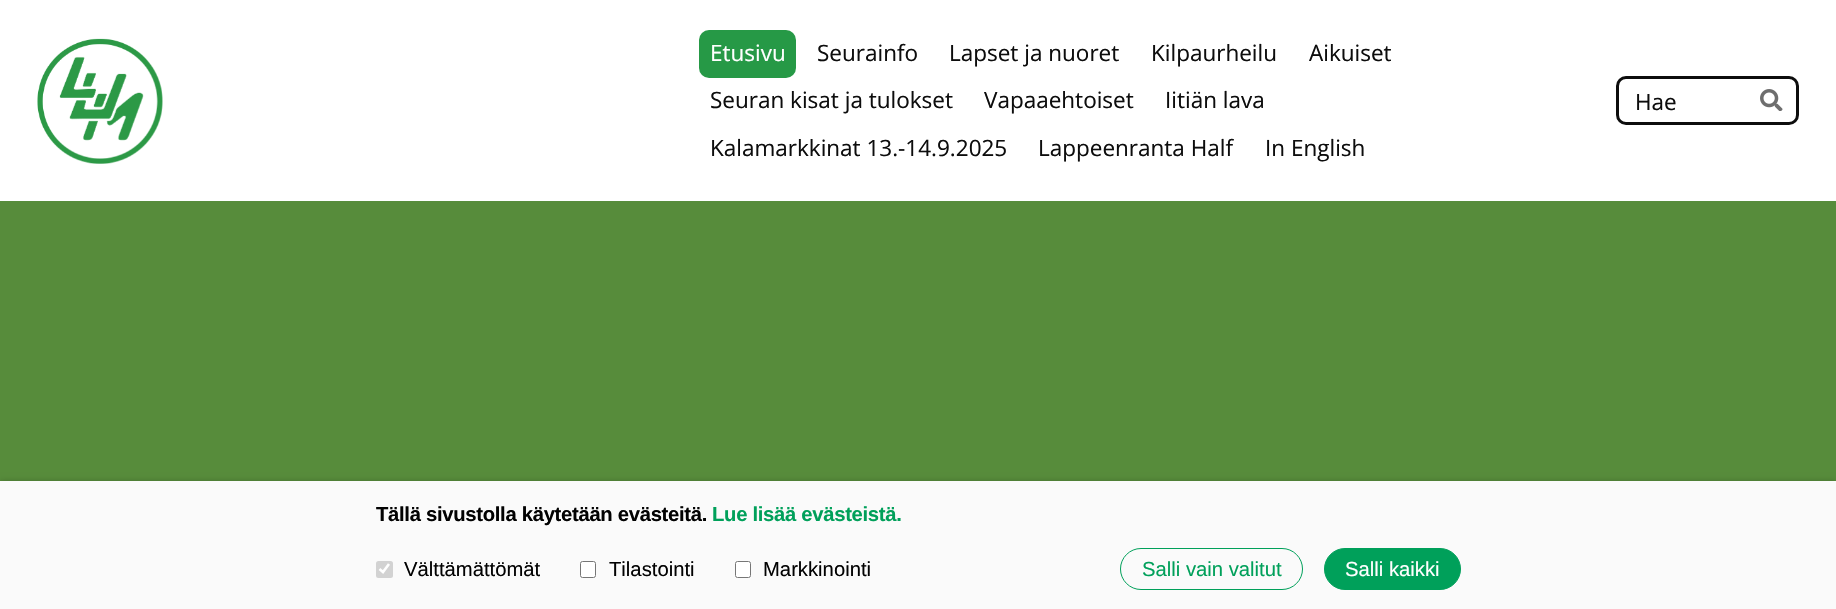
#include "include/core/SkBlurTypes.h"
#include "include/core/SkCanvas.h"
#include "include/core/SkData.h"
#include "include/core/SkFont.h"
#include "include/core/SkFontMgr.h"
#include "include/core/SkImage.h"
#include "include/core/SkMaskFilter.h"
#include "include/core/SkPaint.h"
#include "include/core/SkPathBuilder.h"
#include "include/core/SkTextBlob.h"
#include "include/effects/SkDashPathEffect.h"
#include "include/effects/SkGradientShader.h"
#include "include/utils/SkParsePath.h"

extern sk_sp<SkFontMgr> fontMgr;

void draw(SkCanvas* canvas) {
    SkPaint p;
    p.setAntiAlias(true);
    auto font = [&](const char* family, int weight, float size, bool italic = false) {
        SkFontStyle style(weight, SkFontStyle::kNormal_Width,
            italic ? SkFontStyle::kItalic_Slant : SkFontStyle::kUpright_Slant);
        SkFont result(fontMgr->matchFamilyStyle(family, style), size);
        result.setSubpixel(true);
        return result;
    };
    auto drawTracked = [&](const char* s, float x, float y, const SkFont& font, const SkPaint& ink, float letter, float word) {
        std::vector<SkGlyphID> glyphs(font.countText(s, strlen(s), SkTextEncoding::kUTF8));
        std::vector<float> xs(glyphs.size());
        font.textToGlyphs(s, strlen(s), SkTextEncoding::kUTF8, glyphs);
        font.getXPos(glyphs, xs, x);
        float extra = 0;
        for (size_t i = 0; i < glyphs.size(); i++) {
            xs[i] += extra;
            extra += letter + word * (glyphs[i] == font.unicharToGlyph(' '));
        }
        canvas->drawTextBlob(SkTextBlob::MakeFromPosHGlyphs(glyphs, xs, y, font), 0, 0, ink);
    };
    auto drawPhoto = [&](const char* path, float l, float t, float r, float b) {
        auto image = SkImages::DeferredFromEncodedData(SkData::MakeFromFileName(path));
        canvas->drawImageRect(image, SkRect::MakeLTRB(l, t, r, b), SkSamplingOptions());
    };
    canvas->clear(0xFF578C3B);
    p.setColor(0xFFFFFFFF);
    canvas->drawRect(SkRect::MakeLTRB(0, 0, 1836, 201), p);
    drawPhoto("media/1.png", 37, 38, 163, 164);
    p.setColor(0xFF269946);
    canvas->drawRoundRect(SkRect::MakeLTRB(699, 30, 796, 78), 10, 10, p);
    auto font1 = font("Open Sans", 400, 22.5f);
    p.setColor(0xFFFFFFFF);
    canvas->drawString("Etusivu", 710, 61, font1, p);
    p.setColor(0xFF0D0D0D);
    {
        const struct { const char* s; float x, y; } items[] = {
            {"Seurainfo", 817, 61},
            {"Lapset ja nuoret", 949, 61},
            {"Kilpaurheilu", 1151, 61},
            {"Aikuiset", 1309, 61},
            {"Seuran kisat ja tulokset", 710, 108},
            {"Vapaaehtoiset", 984, 108},
            {"Iitiän lava", 1165, 108},
            {"Kalamarkkinat 13.-14.9.2025", 710, 156},
            {"Lappeenranta Half", 1038, 156},
            {"In English", 1265, 156},
        };
        for (auto [s, x, y] : items) {
            canvas->drawString(s, x, y, font1, p);
        }
    }
    p.setStyle(SkPaint::kStroke_Style);
    p.setStrokeWidth(3);
    canvas->drawRoundRect(SkRect::MakeLTRB(1617.5f, 77.5f, 1797.5f, 123.5f), 8.5f, 8.5f, p);
    p.setStyle(SkPaint::kFill_Style);
    canvas->drawString("Hae", 1635, 110, font1, p);
    drawPhoto("media/2.png", 1760, 89, 1783, 111);
    p.setColor(0x33000000);
    p.setMaskFilter(SkMaskFilter::MakeBlur(kNormal_SkBlurStyle, 3));
    canvas->drawRect(SkRect::MakeLTRB(0, 481, 1836, 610), p);
    p.setMaskFilter(nullptr);
    p.setColor(0xFFFAFAFA);
    canvas->drawRect(SkRect::MakeLTRB(0, 481, 1836, 609), p);
    auto font2 = font("Liberation Sans", 700, 20.25f);
    p.setColor(0xFF020202);
    drawTracked("Tällä sivustolla käytetään evästeitä.", 376, 521, font2, p, -0.3f, 0);
    p.setColor(0xFF00A05A);
    drawTracked("Lue lisää evästeistä.", 712, 521, font2, p, -0.3f, 0);
    p.setColor(0xFFD2D2D2);
    canvas->drawRoundRect(SkRect::MakeLTRB(376, 561, 393, 578), 2.5f, 2.5f, p);
    p.setStyle(SkPaint::kStroke_Style);
    p.setStrokeWidth(2.6f);
    p.setColor(0xFFFFFFFF);
    canvas->drawPath(SkPathBuilder().moveTo(379.5f, 569).lineTo(383, 572).lineTo(389, 564).detach(), p);
    auto font3 = font("Liberation Sans", 400, 20.25f);
    p.setStyle(SkPaint::kFill_Style);
    p.setColor(0xFF020202);
    canvas->drawString("Välttämättömät", 404, 576, font3, p);
    p.setColor(0xFFFFFFFF);
    canvas->drawRoundRect(SkRect::MakeLTRB(580.5f, 561.5f, 595.5f, 577.5f), 2, 2, p);
    p.setStyle(SkPaint::kStroke_Style);
    p.setStrokeWidth(1);
    p.setColor(0xFF767676);
    canvas->drawRoundRect(SkRect::MakeLTRB(580.5f, 561.5f, 595.5f, 577.5f), 2, 2, p);
    p.setStyle(SkPaint::kFill_Style);
    p.setColor(0xFF020202);
    canvas->drawString("Tilastointi", 609, 576, font3, p);
    p.setColor(0xFFFFFFFF);
    canvas->drawRoundRect(SkRect::MakeLTRB(735.5f, 561.5f, 750.5f, 577.5f), 2, 2, p);
    p.setStyle(SkPaint::kStroke_Style);
    p.setColor(0xFF767676);
    canvas->drawRoundRect(SkRect::MakeLTRB(735.5f, 561.5f, 750.5f, 577.5f), 2, 2, p);
    p.setStyle(SkPaint::kFill_Style);
    p.setColor(0xFF020202);
    canvas->drawString("Markkinointi", 763, 576, font3, p);
    p.setStyle(SkPaint::kStroke_Style);
    p.setColor(0xFF00A05A);
    canvas->drawRoundRect(SkRect::MakeLTRB(1120.5f, 548.5f, 1302.5f, 589.5f), 20.5f, 20.5f, p);
    p.setStyle(SkPaint::kFill_Style);
    canvas->drawString("Salli vain valitut", 1142, 576, font3, p);
    canvas->drawRoundRect(SkRect::MakeLTRB(1324.5f, 548.5f, 1460.5f, 589.5f), 20.5f, 20.5f, p);
    p.setStyle(SkPaint::kStroke_Style);
    canvas->drawRoundRect(SkRect::MakeLTRB(1324.5f, 548.5f, 1460.5f, 589.5f), 20.5f, 20.5f, p);
    p.setStyle(SkPaint::kFill_Style);
    p.setColor(0xFFFFFFFF);
    canvas->drawString("Salli kaikki", 1345, 576, font3, p);
}
